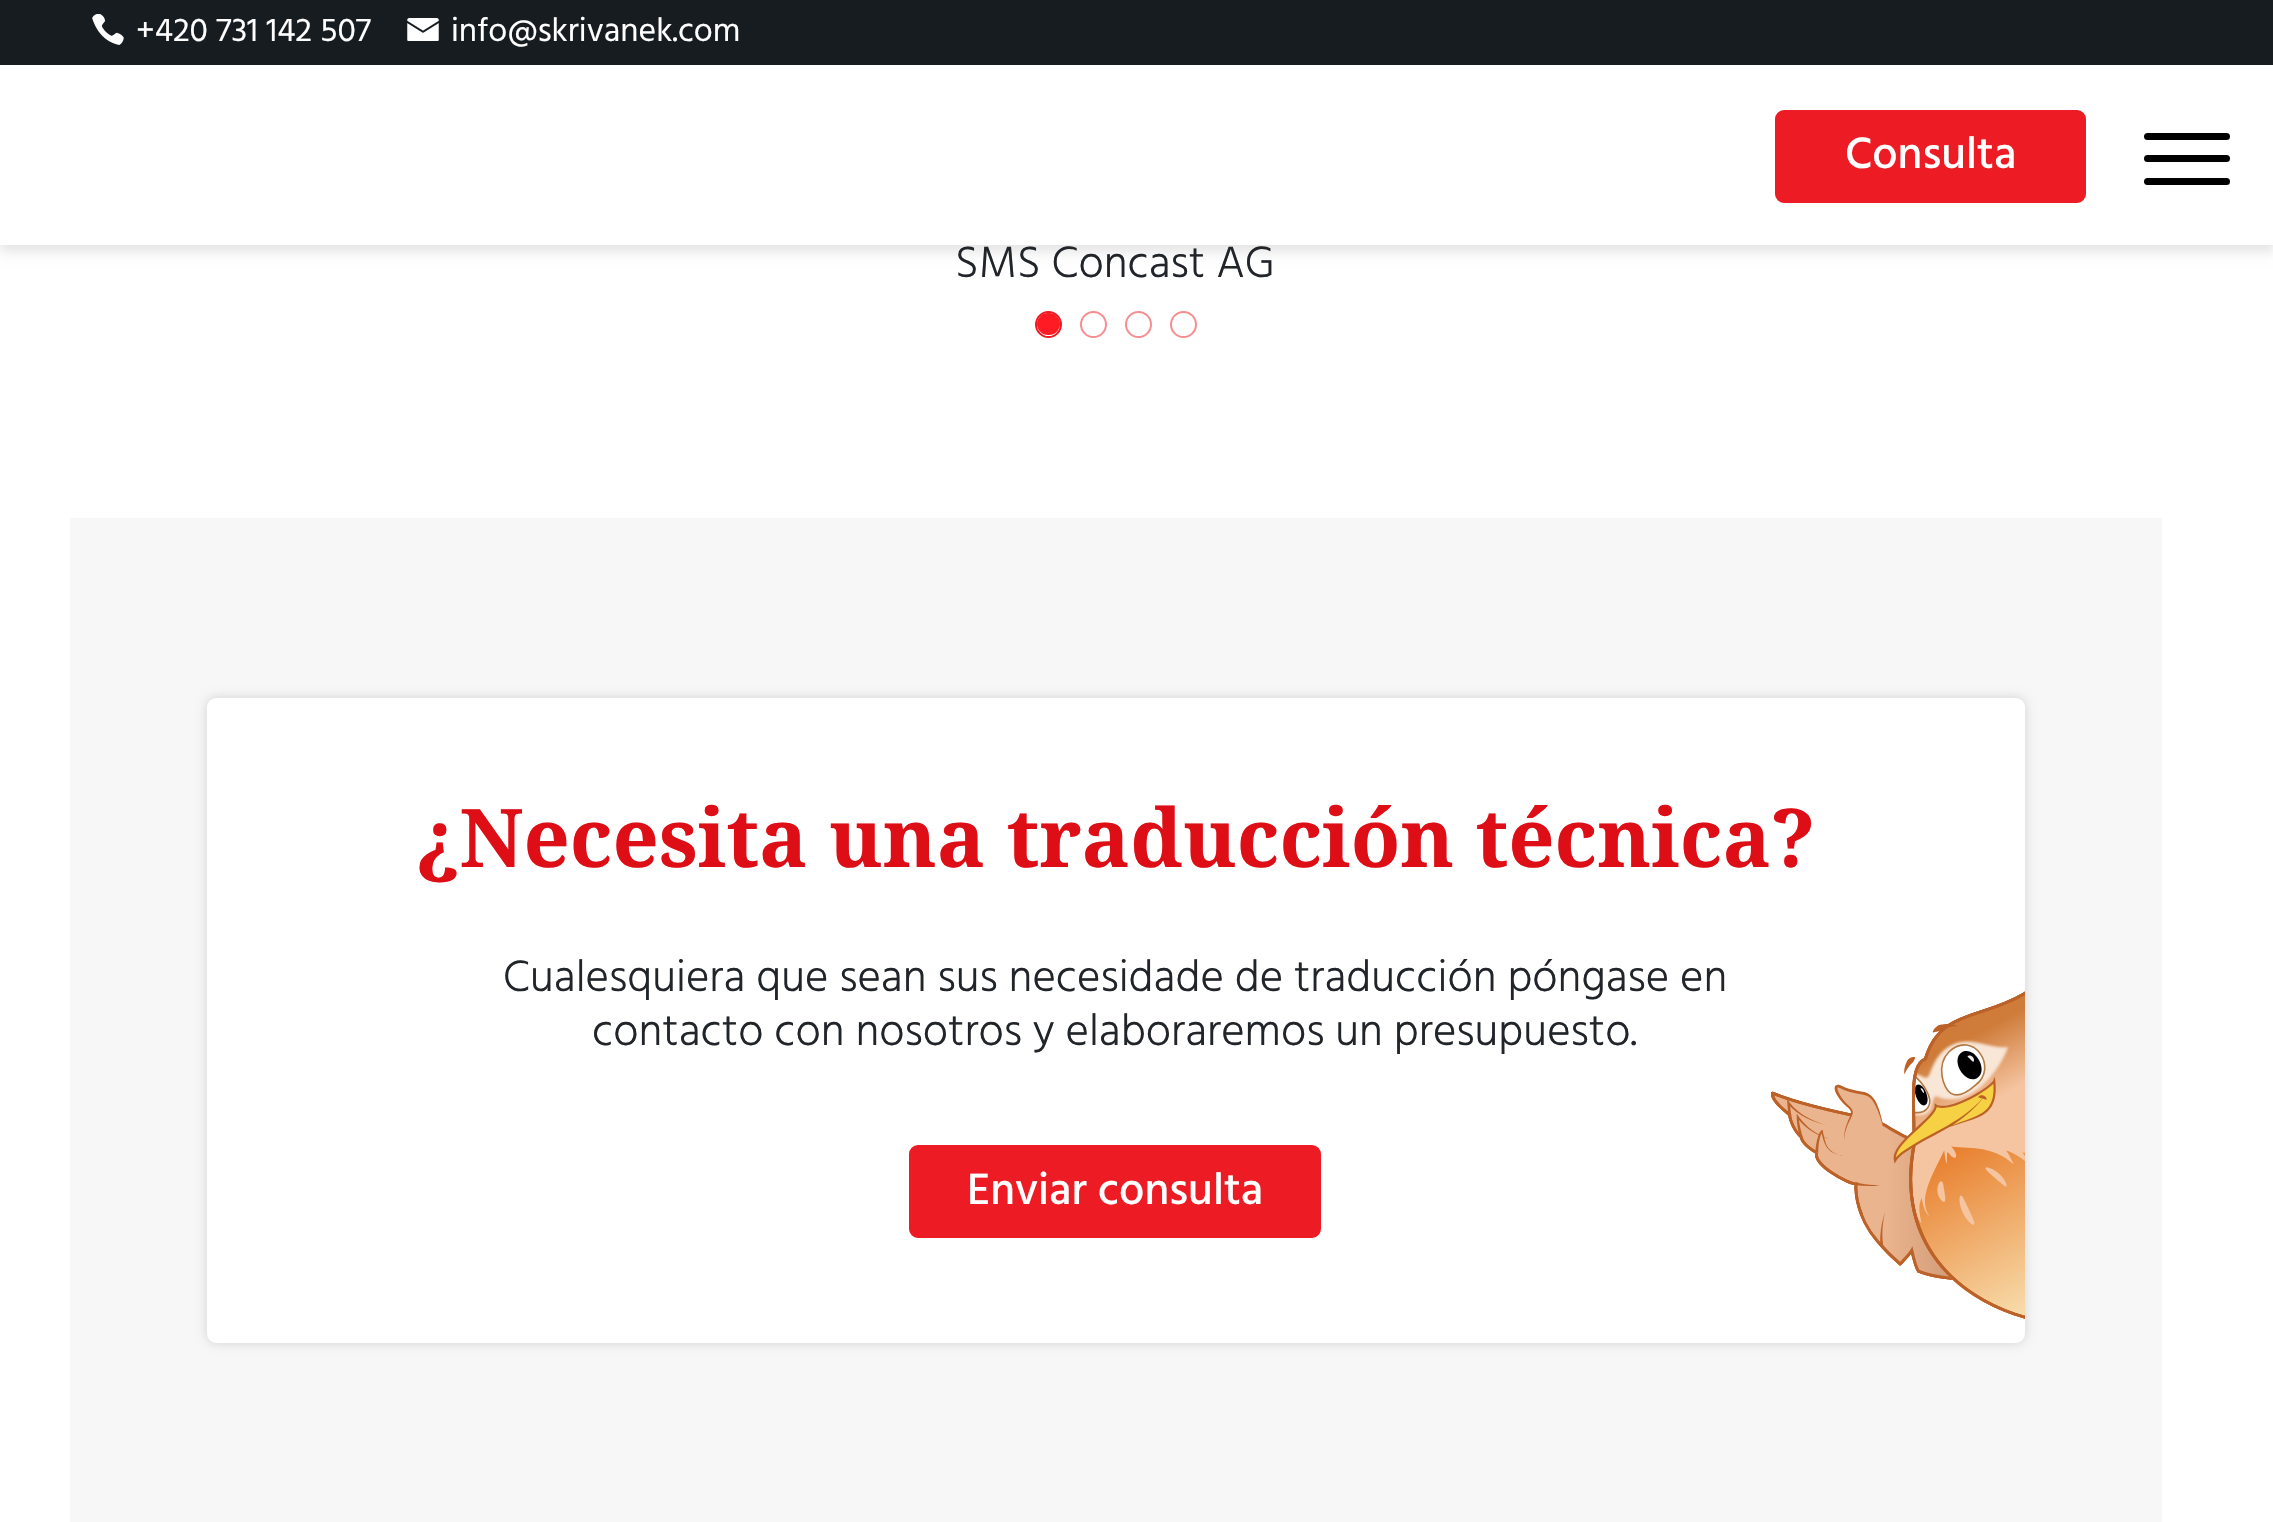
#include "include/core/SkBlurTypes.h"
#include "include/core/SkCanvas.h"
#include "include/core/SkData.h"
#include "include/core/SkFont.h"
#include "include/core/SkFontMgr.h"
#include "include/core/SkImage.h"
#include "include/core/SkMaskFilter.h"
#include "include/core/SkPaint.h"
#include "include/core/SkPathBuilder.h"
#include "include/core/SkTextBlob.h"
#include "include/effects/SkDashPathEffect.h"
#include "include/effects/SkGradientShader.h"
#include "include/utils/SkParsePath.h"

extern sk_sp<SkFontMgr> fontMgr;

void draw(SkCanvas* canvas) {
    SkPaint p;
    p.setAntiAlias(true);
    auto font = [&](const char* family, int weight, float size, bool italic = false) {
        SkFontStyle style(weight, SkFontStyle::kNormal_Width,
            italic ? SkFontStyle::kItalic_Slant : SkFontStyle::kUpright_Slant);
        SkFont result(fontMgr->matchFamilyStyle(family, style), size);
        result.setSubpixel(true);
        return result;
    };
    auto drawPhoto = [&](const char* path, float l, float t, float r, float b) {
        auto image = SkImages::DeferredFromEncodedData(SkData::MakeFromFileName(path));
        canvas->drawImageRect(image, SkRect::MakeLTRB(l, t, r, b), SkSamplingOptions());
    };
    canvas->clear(0xFFFFFFFF);
    p.setColor(0x1A000000);
    p.setMaskFilter(SkMaskFilter::MakeBlur(kNormal_SkBlurStyle, 5.5f));
    canvas->drawRect(SkRect::MakeLTRB(0, 7, 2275, 252), p);
    p.setMaskFilter(nullptr);
    p.setColor(0xFF171C20);
    canvas->drawRect(SkRect::MakeLTRB(0, 0, 2273, 65), p);
    drawPhoto("media/1.png", 92, 14, 124, 45);
    auto font1 = font("Hind", 400, 33.75f);
    p.setColor(0xFFFFFFFF);
    canvas->drawString("+420 731 142 507", 136, 41, font1, p);
    drawPhoto("media/2.png", 407, 18, 439, 41);
    canvas->drawString("info@skrivanek.com", 451, 41, font1, p);
    canvas->drawRect(SkRect::MakeLTRB(0, 65, 2273, 245), p);
    p.setColor(0xFFED1B23);
    canvas->drawRoundRect(SkRect::MakeLTRB(1776, 111, 2085, 202), 8, 8, p);
    p.setStyle(SkPaint::kStroke_Style);
    p.setStrokeWidth(2);
    canvas->drawRoundRect(SkRect::MakeLTRB(1776, 111, 2085, 202), 8, 8, p);
    auto font2 = font("Hind", 500, 45);
    p.setStyle(SkPaint::kFill_Style);
    p.setColor(0xFFFFFFFF);
    canvas->drawString("Consulta", 1845, 168, font2, p);
    p.setColor(0xFF000000);
    canvas->drawRoundRect(SkRect::MakeLTRB(2144, 155, 2230, 162), 3.5f, 3.5f, p);
    canvas->drawRoundRect(SkRect::MakeLTRB(2144, 133, 2230, 140), 3.5f, 3.5f, p);
    canvas->drawRoundRect(SkRect::MakeLTRB(2144, 178, 2230, 185), 3.5f, 3.5f, p);
    auto font3 = font("Hind", 300, 45);
    p.setColor(0xFF212529);
    canvas->drawString("SMS Concast AG", 955, 277, font3, p);
    p.setColor(0xFFFF1B24);
    canvas->drawRoundRect(SkRect::MakeLTRB(1037, 313, 1060, 335), 11, 11, p);
    p.setStyle(SkPaint::kStroke_Style);
    p.setColor(0xFFED1B23);
    canvas->drawCircle(1048.5f, 324.5f, 12.5f, p);
    p.setColor(0xFFF68D91);
    canvas->drawCircle(1093.5f, 324.5f, 12.5f, p);
    canvas->drawCircle(1138.5f, 324.5f, 12.5f, p);
    canvas->drawCircle(1183.5f, 324.5f, 12.5f, p);
    p.setStyle(SkPaint::kFill_Style);
    p.setColor(0xFFF7F7F7);
    canvas->drawRect(SkRect::MakeLTRB(70, 518, 2162, 1522), p);
    p.setColor(0x26000000);
    p.setMaskFilter(SkMaskFilter::MakeBlur(kNormal_SkBlurStyle, 5.5f));
    canvas->drawRoundRect(SkRect::MakeLTRB(207, 698, 2025, 1343), 9, 9, p);
    p.setMaskFilter(nullptr);
    p.setColor(0xFFFFFFFF);
    canvas->drawRoundRect(SkRect::MakeLTRB(207, 698, 2025, 1343), 9, 9, p);
    drawPhoto("media/3.png", 1771, 991, 2025, 1319);
    auto font4 = font("Noto Serif", 700, 81);
    p.setColor(0xFFDD0E16);
    canvas->drawString("¿Necesita una traducción técnica?", 415, 867, font4, p);
    p.setColor(0xFF212529);
    canvas->drawString("Cualesquiera que sean sus necesidade de traducción póngase en", 503, 991, font3, p);
    canvas->drawString("contacto con nosotros y elaboraremos un presupuesto.", 592, 1045, font3, p);
    p.setColor(0xFFED1B23);
    canvas->drawRoundRect(SkRect::MakeLTRB(910, 1146, 1320, 1237), 8, 8, p);
    p.setStyle(SkPaint::kStroke_Style);
    canvas->drawRoundRect(SkRect::MakeLTRB(910, 1146, 1320, 1237), 8, 8, p);
    p.setStyle(SkPaint::kFill_Style);
    p.setColor(0xFFFFFFFF);
    canvas->drawString("Enviar consulta", 967, 1204, font2, p);
}
